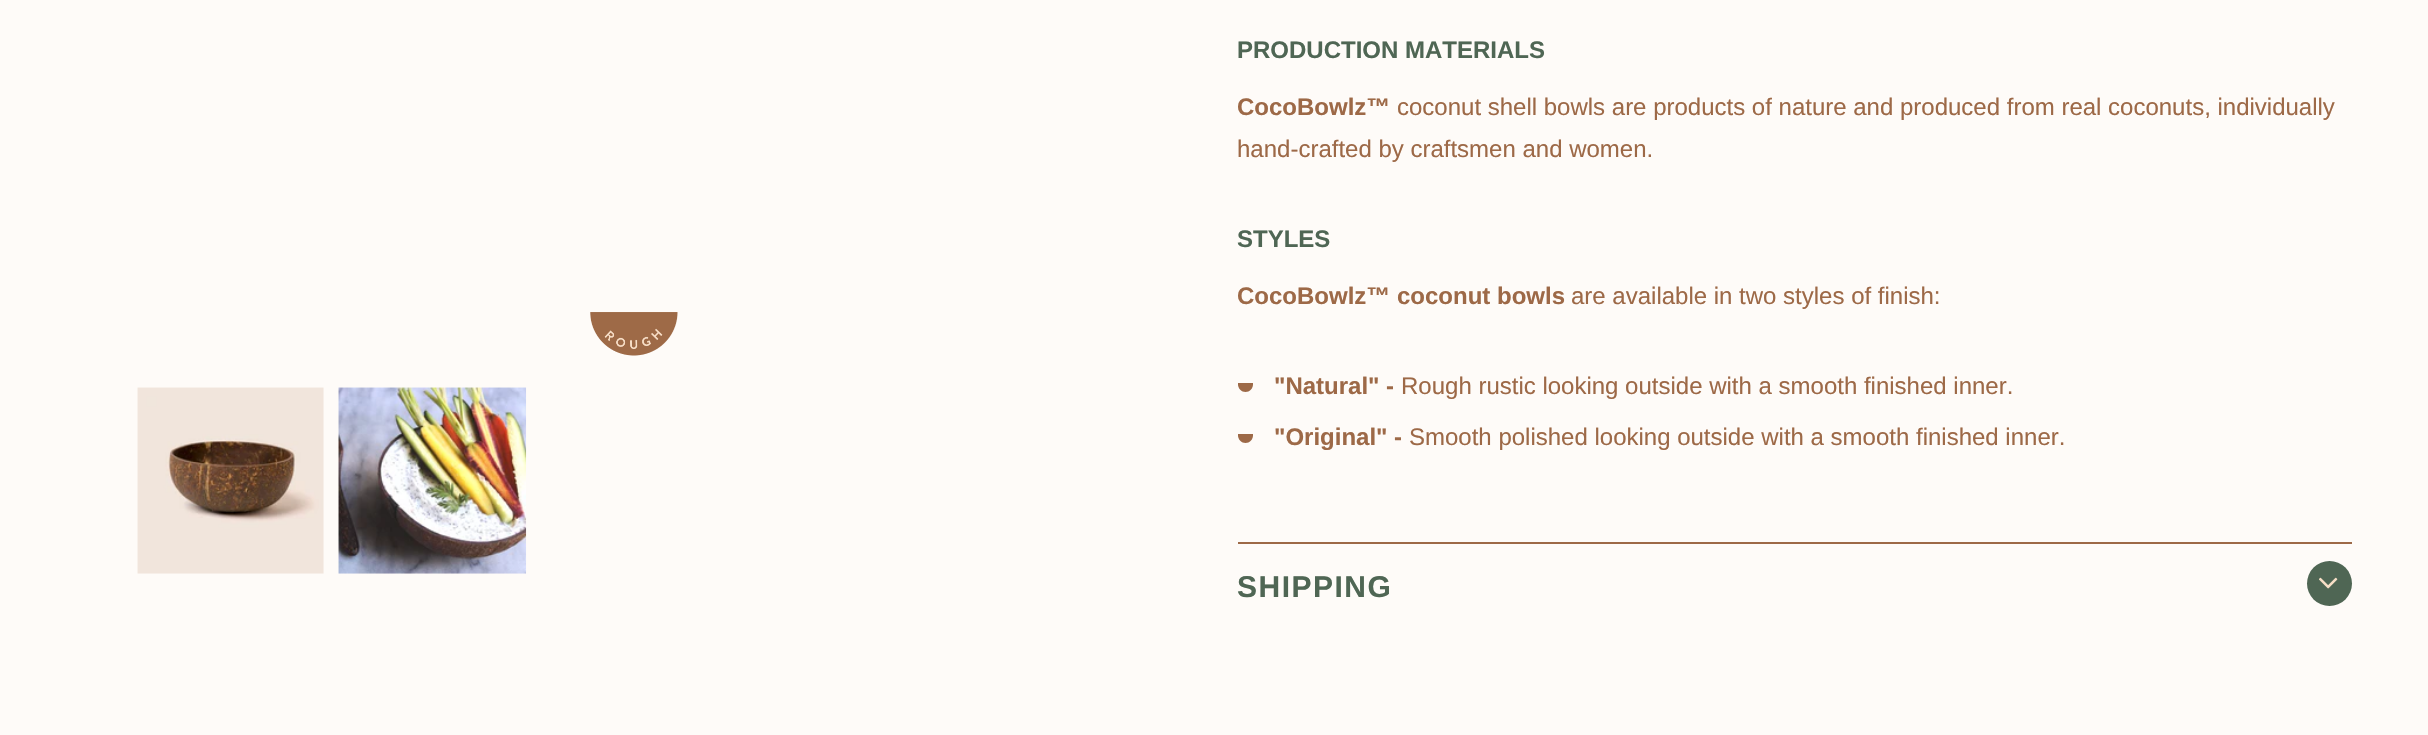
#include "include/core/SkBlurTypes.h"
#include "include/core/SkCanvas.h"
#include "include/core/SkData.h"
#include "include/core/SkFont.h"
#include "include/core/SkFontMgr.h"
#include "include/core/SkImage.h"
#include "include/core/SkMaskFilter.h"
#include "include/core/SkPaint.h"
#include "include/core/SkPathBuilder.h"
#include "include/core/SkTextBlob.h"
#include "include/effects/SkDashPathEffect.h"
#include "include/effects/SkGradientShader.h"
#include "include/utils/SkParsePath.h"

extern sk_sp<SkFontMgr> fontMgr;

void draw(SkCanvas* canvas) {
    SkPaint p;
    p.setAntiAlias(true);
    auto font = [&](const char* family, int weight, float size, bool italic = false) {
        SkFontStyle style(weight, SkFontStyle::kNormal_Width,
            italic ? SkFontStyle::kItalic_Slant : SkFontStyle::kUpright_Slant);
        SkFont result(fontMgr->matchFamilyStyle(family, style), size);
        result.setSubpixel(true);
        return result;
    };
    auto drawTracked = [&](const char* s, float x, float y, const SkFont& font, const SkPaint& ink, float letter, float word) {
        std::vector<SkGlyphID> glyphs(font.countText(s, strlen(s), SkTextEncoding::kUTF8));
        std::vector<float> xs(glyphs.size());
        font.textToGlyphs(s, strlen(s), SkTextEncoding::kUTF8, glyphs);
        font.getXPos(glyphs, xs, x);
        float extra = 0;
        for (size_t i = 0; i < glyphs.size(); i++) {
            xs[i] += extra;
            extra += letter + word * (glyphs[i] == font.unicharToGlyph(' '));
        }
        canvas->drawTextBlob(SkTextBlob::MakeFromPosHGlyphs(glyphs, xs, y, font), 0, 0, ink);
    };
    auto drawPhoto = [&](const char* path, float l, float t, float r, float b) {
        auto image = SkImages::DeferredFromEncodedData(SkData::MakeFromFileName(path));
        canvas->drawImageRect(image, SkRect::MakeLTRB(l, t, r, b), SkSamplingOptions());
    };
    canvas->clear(0xFFFEFBF8);
    drawPhoto("media/1.png", 590, 312, 678, 356);
    drawPhoto("media/2.png", 137, 387, 324, 574);
    drawPhoto("media/3.png", 338, 387, 527, 574);
    auto font1 = font("Liberation Sans", 700, 24);
    p.setColor(0xFF4F6654);
    canvas->drawString("PRODUCTION MATERIALS", 1237, 58, font1, p);
    p.setColor(0xFF9D6947);
    canvas->drawString("CocoBowlz™", 1237, 115, font1, p);
    auto font2 = font("Liberation Sans", 400, 24);
    canvas->drawString("coconut shell bowls are products of nature and produced from real coconuts, individually", 1397, 115, font2, p);
    canvas->drawString("hand-crafted by craftsmen and women.", 1237, 157, font2, p);
    p.setColor(0xFF4F6654);
    canvas->drawString("STYLES", 1237, 247, font1, p);
    p.setColor(0xFF9D6947);
    canvas->drawString("CocoBowlz™ coconut bowls", 1237, 304, font1, p);
    canvas->drawString("are available in two styles of finish:", 1571, 304, font2, p);
    canvas->drawPath(SkPathBuilder().moveTo(1238, 383).lineTo(1253, 383).lineTo(1253, 384.5f).cubicTo(1253, 388.5f, 1249.5f, 392, 1245.5f, 392).cubicTo(1241.5f, 392, 1238, 388.5f, 1238, 384.5f).close().detach(), p);
    canvas->drawString("\"Natural\" -", 1274, 394, font1, p);
    canvas->drawString("Rough rustic looking outside with a smooth finished inner.", 1401, 394, font2, p);
    canvas->drawPath(SkPathBuilder().moveTo(1238, 434).lineTo(1253, 434).lineTo(1253, 435.5f).cubicTo(1253, 439.5f, 1249.5f, 443, 1245.5f, 443).cubicTo(1241.5f, 443, 1238, 439.5f, 1238, 435.5f).close().detach(), p);
    canvas->drawString("\"Original\" -", 1274, 445, font1, p);
    canvas->drawString("Smooth polished looking outside with a smooth finished inner.", 1409, 445, font2, p);
    canvas->drawRect(SkRect::MakeLTRB(1238, 542, 2352, 544), p);
    auto font3 = font("Liberation Sans", 700, 30);
    p.setColor(0xFF4F6654);
    drawTracked("SHIPPING", 1237, 597, font3, p, 1.5f, 0);
    canvas->drawCircle(2329.5f, 583.5f, 22.5f, p);
    drawPhoto("media/4.png", 2319, 577, 2338, 589);
}
